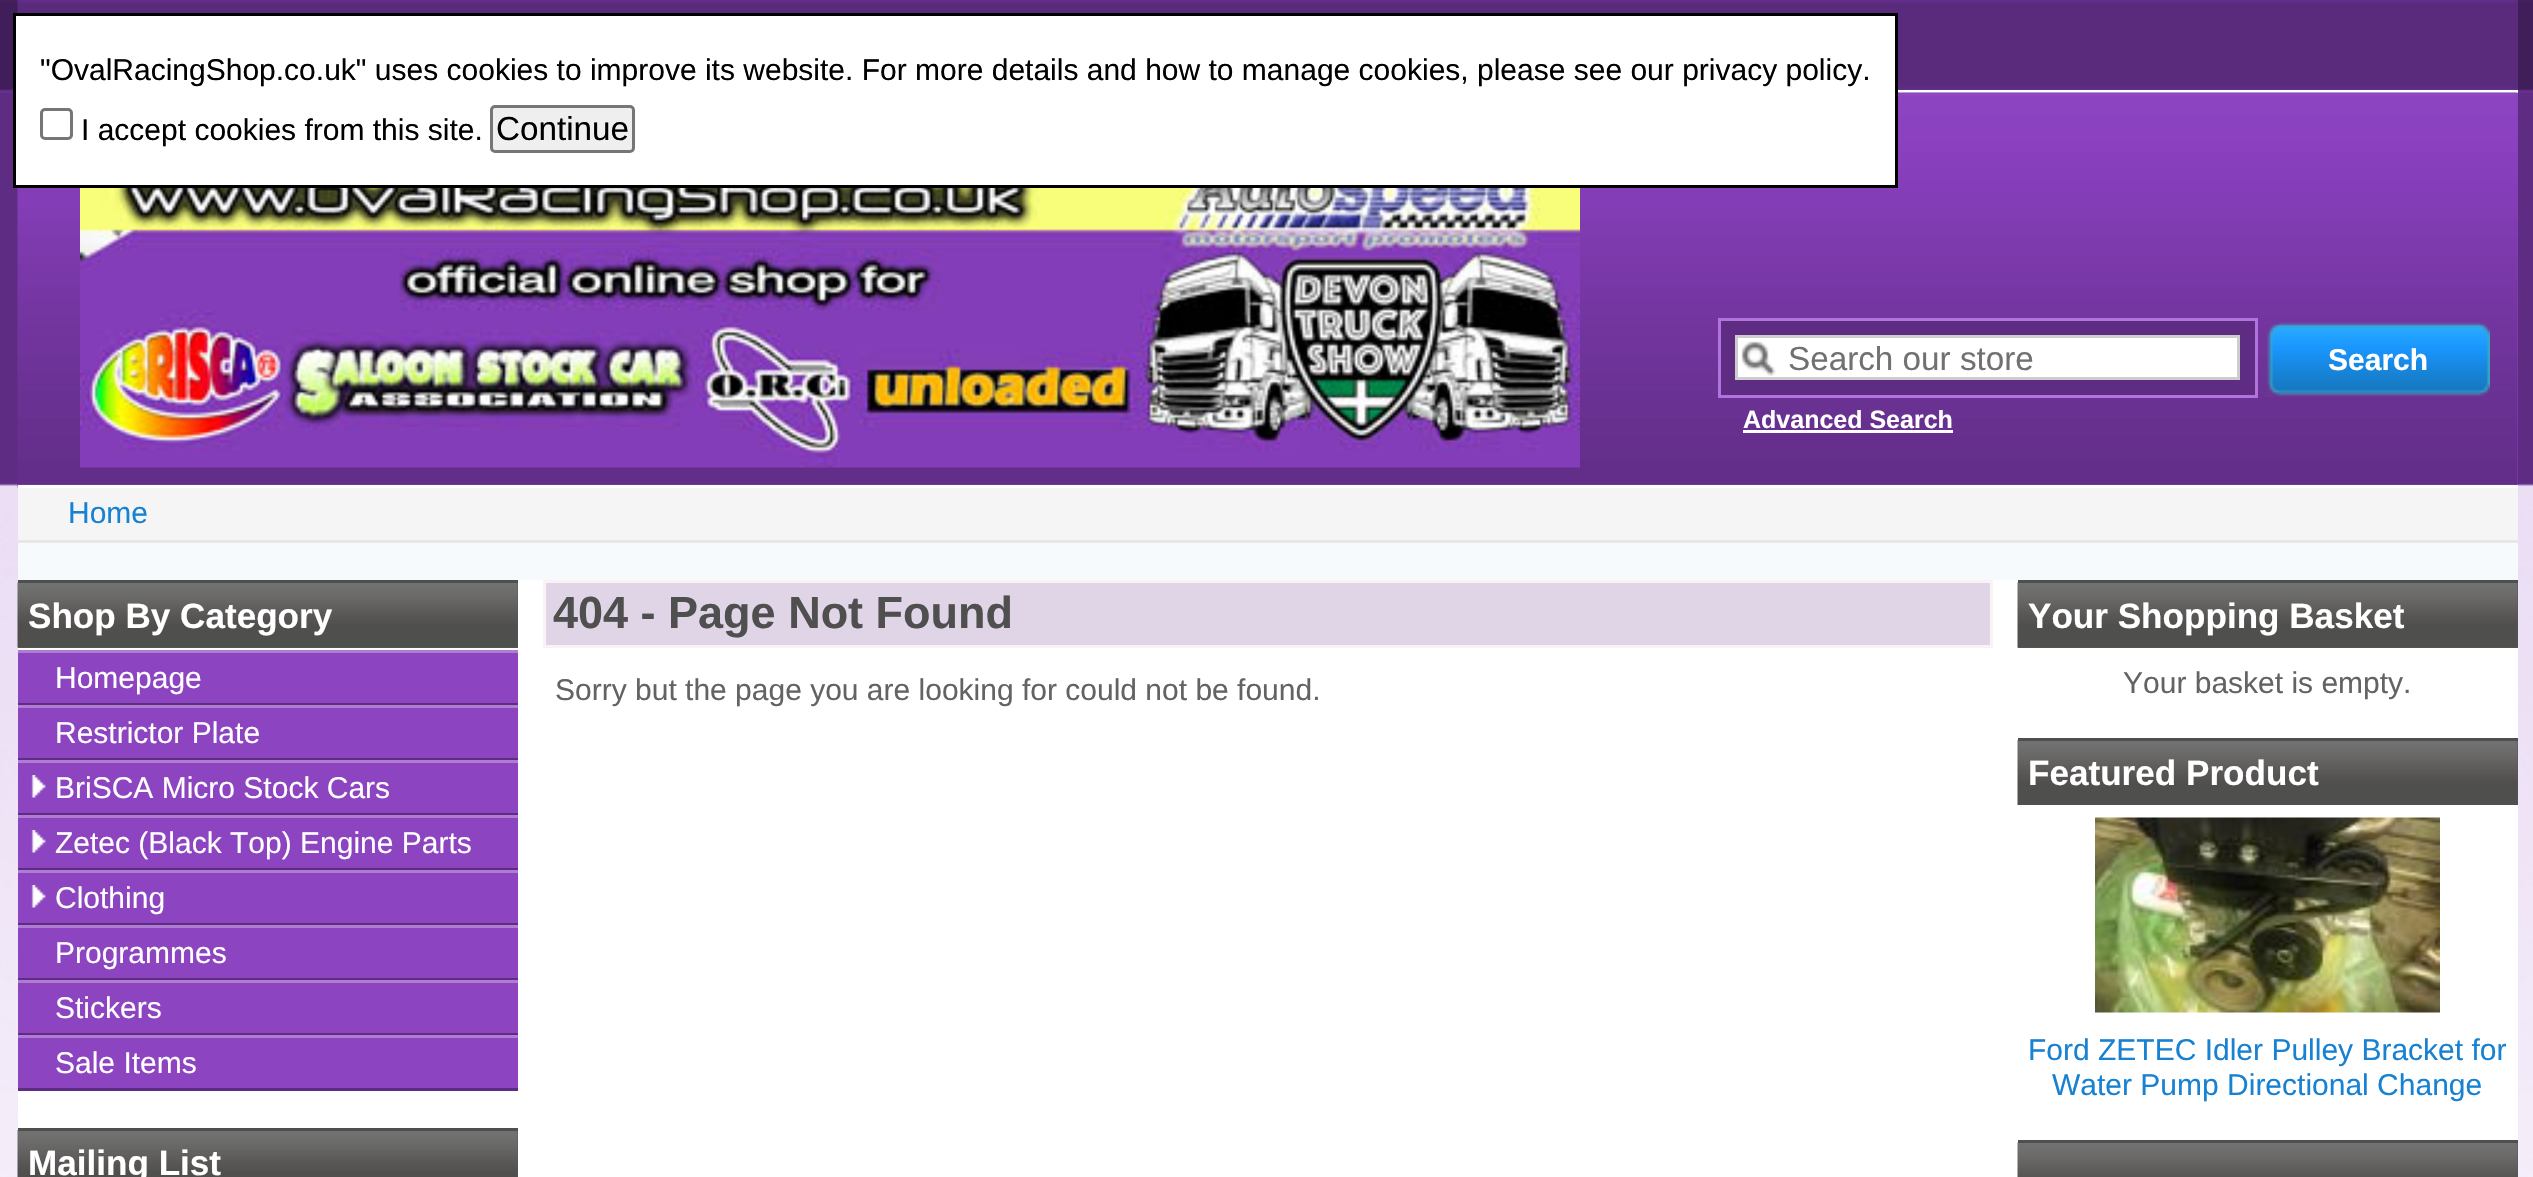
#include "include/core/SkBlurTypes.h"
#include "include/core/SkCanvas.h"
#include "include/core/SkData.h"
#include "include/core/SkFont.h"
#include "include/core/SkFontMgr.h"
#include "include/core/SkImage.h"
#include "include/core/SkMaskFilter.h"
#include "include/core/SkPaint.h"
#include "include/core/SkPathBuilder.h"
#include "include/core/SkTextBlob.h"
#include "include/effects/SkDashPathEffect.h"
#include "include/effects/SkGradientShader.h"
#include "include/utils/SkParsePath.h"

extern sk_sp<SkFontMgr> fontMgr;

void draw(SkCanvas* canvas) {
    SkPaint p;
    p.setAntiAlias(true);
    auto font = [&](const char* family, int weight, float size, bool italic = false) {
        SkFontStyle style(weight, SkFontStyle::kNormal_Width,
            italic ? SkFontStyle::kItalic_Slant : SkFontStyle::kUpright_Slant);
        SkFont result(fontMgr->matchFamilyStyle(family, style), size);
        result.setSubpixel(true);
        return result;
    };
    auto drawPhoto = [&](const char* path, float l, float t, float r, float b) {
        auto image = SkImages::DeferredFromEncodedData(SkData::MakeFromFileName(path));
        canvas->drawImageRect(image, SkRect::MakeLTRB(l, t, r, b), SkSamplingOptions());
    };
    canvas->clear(0xFFFFFFFF);
    drawPhoto("media/1.png", 0, 0, 2533, 1177);
    p.setColor(0xFF5A2B7C);
    canvas->drawRect(SkRect::MakeLTRB(2517, 0, 2518, 90), p);
    drawPhoto("media/2.png", 17, 0, 2518, 90);
    p.setColor(0xFFFFFFFF);
    canvas->drawRect(SkRect::MakeLTRB(1898, 90, 2518, 93), p);
    p.setColor(0xFF863EBB);
    canvas->drawRect(SkRect::MakeLTRB(2517, 93, 2518, 485), p);
    drawPhoto("media/3.png", 17, 92, 2518, 488);
    p.setColor(0xFFFFFFFF);
    canvas->drawRect(SkRect::MakeLTRB(14.5f, 14.5f, 1896.5f, 186.5f), p);
    p.setStyle(SkPaint::kStroke_Style);
    p.setStrokeWidth(3);
    p.setColor(0xFF000000);
    canvas->drawRect(SkRect::MakeLTRB(14.5f, 14.5f, 1896.5f, 186.5f), p);
    auto font1 = font("Liberation Sans", 400, 30);
    p.setStyle(SkPaint::kFill_Style);
    canvas->drawString("\"OvalRacingShop.co.uk\" uses cookies to improve its website. For more details and how to manage cookies, please see our privacy policy.", 40, 80, font1, p);
    p.setStyle(SkPaint::kStroke_Style);
    p.setColor(0xFF767676);
    canvas->drawRoundRect(SkRect::MakeLTRB(41.5f, 109.5f, 71.5f, 138.5f), 3.5f, 3.5f, p);
    p.setStyle(SkPaint::kFill_Style);
    p.setColor(0xFF000000);
    canvas->drawString("I accept cookies from this site.", 81, 140, font1, p);
    p.setColor(0xFFEFEFEF);
    canvas->drawRoundRect(SkRect::MakeLTRB(491.5f, 106.5f, 633.5f, 151.5f), 3.5f, 3.5f, p);
    p.setStyle(SkPaint::kStroke_Style);
    p.setColor(0xFF767676);
    canvas->drawRoundRect(SkRect::MakeLTRB(491.5f, 106.5f, 633.5f, 151.5f), 3.5f, 3.5f, p);
    auto font2 = font("Liberation Sans", 400, 33.25f);
    p.setStyle(SkPaint::kFill_Style);
    p.setColor(0xFF000000);
    canvas->drawString("Continue", 496, 140, font2, p);
    p.setColor(0xFFF6FAFC);
    canvas->drawRect(SkRect::MakeLTRB(18, 543, 2518, 580), p);
    p.setColor(0xFFFFFFFF);
    canvas->drawRect(SkRect::MakeLTRB(18, 485, 2518, 488), p);
    drawPhoto("media/4.png", 80, 188, 1580, 468);
    p.setColor(0xFF5E2C83);
    canvas->drawRect(SkRect::MakeLTRB(1719.5f, 319.5f, 2256.5f, 396.5f), p);
    p.setStyle(SkPaint::kStroke_Style);
    p.setColor(0xFFB273DE);
    canvas->drawRect(SkRect::MakeLTRB(1719.5f, 319.5f, 2256.5f, 396.5f), p);
    p.setStyle(SkPaint::kFill_Style);
    p.setColor(0xFFFFFFFF);
    canvas->drawRect(SkRect::MakeLTRB(1738, 338, 2237, 377), p);
    drawPhoto("media/5.png", 1741, 341, 1776, 376);
    p.setStyle(SkPaint::kStroke_Style);
    p.setColor(0xFFCDCDCD);
    canvas->drawRect(SkRect::MakeLTRB(1736.5f, 336.5f, 2238.5f, 378.5f), p);
    p.setStyle(SkPaint::kFill_Style);
    p.setColor(0xFF717171);
    canvas->drawString("Search our store", 1788, 370, font2, p);
    drawPhoto("media/6.png", 2265, 322, 2490, 397);
    auto font3 = font("Liberation Sans", 700, 30);
    p.setColor(0xFFFFFFFF);
    canvas->drawString("Search", 2328, 370, font3, p);
    auto font4 = font("Liberation Sans", 700, 25);
    canvas->drawString("Advanced Search", 1743, 428, font4, p);
    {
        const struct { float l, t, r, b; SkColor color; } items[] = {
            {1743, 430, 1953, 433, 0xFFFFFFFF},
            {18, 488, 2518, 540, 0xFFF5F5F5},
            {18, 540, 2518, 543, 0xFFEAE6E6},
        };
        for (auto [l, t, r, b, color] : items) {
            p.setColor(color);
            canvas->drawRect(SkRect::MakeLTRB(l, t, r, b), p);
        }
    }
    p.setColor(0xFF1781D2);
    canvas->drawString("Home", 68, 523, font1, p);
    p.setColor(0xFFFFFFFF);
    canvas->drawRect(SkRect::MakeLTRB(18, 580, 2518, 1177), p);
    p.setColor(0xFF595755);
    canvas->drawRect(SkRect::MakeLTRB(18, 583, 518, 648), p);
    drawPhoto("media/7.png", 17, 582, 518, 648);
    p.setColor(0xFF4F4F4F);
    canvas->drawRect(SkRect::MakeLTRB(18, 580, 518, 583), p);
    auto font5 = font("Liberation Sans", 700, 35.1f);
    p.setColor(0xFFFFFFFF);
    canvas->drawString("Shop By Category", 28, 628, font5, p);
    {
        const struct { float l, t, r, b; SkColor color; } items[] = {
            {18, 653, 518, 703, 0xFF8C44C1},
            {18, 650, 518, 653, 0xFFAE7CD3},
            {18, 703, 518, 705, 0xFF5E2C83},
        };
        for (auto [l, t, r, b, color] : items) {
            p.setColor(color);
            canvas->drawRect(SkRect::MakeLTRB(l, t, r, b), p);
        }
    }
    p.setColor(0xFFFFFFFF);
    canvas->drawString("Homepage", 55, 688, font1, p);
    {
        const struct { float l, t, r, b; SkColor color; } items[] = {
            {18, 708, 518, 758, 0xFF8C44C1},
            {18, 705, 518, 708, 0xFFAE7CD3},
            {18, 758, 518, 760, 0xFF5E2C83},
        };
        for (auto [l, t, r, b, color] : items) {
            p.setColor(color);
            canvas->drawRect(SkRect::MakeLTRB(l, t, r, b), p);
        }
    }
    p.setColor(0xFFFFFFFF);
    canvas->drawString("Restrictor Plate", 55, 743, font1, p);
    p.setColor(0xFF8C44C1);
    canvas->drawRect(SkRect::MakeLTRB(18, 763, 518, 813), p);
    drawPhoto("media/8.png", 31, 775, 46, 798);
    p.setColor(0xFFAE7CD3);
    canvas->drawRect(SkRect::MakeLTRB(18, 760, 518, 763), p);
    p.setColor(0xFF5E2C83);
    canvas->drawRect(SkRect::MakeLTRB(18, 813, 518, 815), p);
    p.setColor(0xFFFFFFFF);
    canvas->drawString("BriSCA Micro Stock Cars", 55, 798, font1, p);
    p.setColor(0xFF8C44C1);
    canvas->drawRect(SkRect::MakeLTRB(18, 818, 518, 868), p);
    drawPhoto("media/9.png", 31, 830, 46, 853);
    p.setColor(0xFFAE7CD3);
    canvas->drawRect(SkRect::MakeLTRB(18, 815, 518, 818), p);
    p.setColor(0xFF5E2C83);
    canvas->drawRect(SkRect::MakeLTRB(18, 868, 518, 870), p);
    p.setColor(0xFFFFFFFF);
    canvas->drawString("Zetec (Black Top) Engine Parts", 55, 853, font1, p);
    p.setColor(0xFF8C44C1);
    canvas->drawRect(SkRect::MakeLTRB(18, 873, 518, 923), p);
    drawPhoto("media/9.png", 31, 885, 46, 908);
    p.setColor(0xFFAE7CD3);
    canvas->drawRect(SkRect::MakeLTRB(18, 870, 518, 873), p);
    p.setColor(0xFF5E2C83);
    canvas->drawRect(SkRect::MakeLTRB(18, 923, 518, 925), p);
    p.setColor(0xFFFFFFFF);
    canvas->drawString("Clothing", 55, 908, font1, p);
    {
        const struct { float l, t, r, b; SkColor color; } items[] = {
            {18, 928, 518, 978, 0xFF8C44C1},
            {18, 925, 518, 928, 0xFFAE7CD3},
            {18, 978, 518, 980, 0xFF5E2C83},
        };
        for (auto [l, t, r, b, color] : items) {
            p.setColor(color);
            canvas->drawRect(SkRect::MakeLTRB(l, t, r, b), p);
        }
    }
    p.setColor(0xFFFFFFFF);
    canvas->drawString("Programmes", 55, 963, font1, p);
    {
        const struct { float l, t, r, b; SkColor color; } items[] = {
            {18, 983, 518, 1033, 0xFF8C44C1},
            {18, 980, 518, 983, 0xFFAE7CD3},
            {18, 1033, 518, 1035, 0xFF5E2C83},
        };
        for (auto [l, t, r, b, color] : items) {
            p.setColor(color);
            canvas->drawRect(SkRect::MakeLTRB(l, t, r, b), p);
        }
    }
    p.setColor(0xFFFFFFFF);
    canvas->drawString("Stickers", 55, 1018, font1, p);
    {
        const struct { float l, t, r, b; SkColor color; } items[] = {
            {18, 1038, 518, 1088, 0xFF8C44C1},
            {18, 1035, 518, 1038, 0xFFAE7CD3},
            {18, 1088, 518, 1091, 0xFF5E2C83},
        };
        for (auto [l, t, r, b, color] : items) {
            p.setColor(color);
            canvas->drawRect(SkRect::MakeLTRB(l, t, r, b), p);
        }
    }
    p.setColor(0xFFFFFFFF);
    canvas->drawString("Sale Items", 55, 1073, font1, p);
    p.setColor(0xFF595755);
    canvas->drawRect(SkRect::MakeLTRB(517, 1131, 518, 1177), p);
    drawPhoto("media/10.png", 17, 1130, 518, 1177);
    p.setColor(0xFF4F4F4F);
    canvas->drawRect(SkRect::MakeLTRB(18, 1128, 518, 1131), p);
    p.setColor(0xFFFFFFFF);
    canvas->drawString("Mailing List", 28, 1175, font5, p);
    p.setColor(0xFFE0D5E6);
    canvas->drawRect(SkRect::MakeLTRB(544.5f, 581.5f, 1991.5f, 646.5f), p);
    p.setStyle(SkPaint::kStroke_Style);
    p.setColor(0xFFFBF2F3);
    canvas->drawRect(SkRect::MakeLTRB(544.5f, 581.5f, 1991.5f, 646.5f), p);
    auto font6 = font("Liberation Sans", 700, 45);
    p.setStyle(SkPaint::kFill_Style);
    p.setColor(0xFF4F4F4F);
    canvas->drawString("404 - Page Not Found", 553, 628, font6, p);
    p.setColor(0xFF636363);
    canvas->drawString("Sorry but the page you are looking for could not be found.", 555, 700, font1, p);
    p.setColor(0xFF595755);
    canvas->drawRect(SkRect::MakeLTRB(2018, 583, 2518, 648), p);
    drawPhoto("media/11.png", 2017, 582, 2518, 648);
    p.setColor(0xFF4F4F4F);
    canvas->drawRect(SkRect::MakeLTRB(2018, 580, 2518, 583), p);
    p.setColor(0xFFFFFFFF);
    canvas->drawString("Your Shopping Basket", 2028, 628, font5, p);
    p.setColor(0xFF636363);
    canvas->drawString("Your basket is empty.", 2123, 693, font1, p);
    p.setColor(0xFF595755);
    canvas->drawRect(SkRect::MakeLTRB(2517, 741, 2518, 805), p);
    drawPhoto("media/12.png", 2017, 740, 2518, 805);
    p.setColor(0xFF4F4F4F);
    canvas->drawRect(SkRect::MakeLTRB(2018, 738, 2518, 741), p);
    p.setColor(0xFFFFFFFF);
    canvas->drawString("Featured Product", 2028, 785, font5, p);
    drawPhoto("media/13.png", 2095, 817, 2440, 1013);
    p.setColor(0xFF1781D2);
    canvas->drawString("Ford ZETEC Idler Pulley Bracket for", 2028, 1060, font1, p);
    canvas->drawString("Water Pump Directional Change", 2052, 1095, font1, p);
    p.setColor(0xFF595755);
    canvas->drawRect(SkRect::MakeLTRB(2517, 1143, 2518, 1177), p);
    drawPhoto("media/14.png", 2017, 1142, 2518, 1177);
    p.setColor(0xFF4F4F4F);
    canvas->drawRect(SkRect::MakeLTRB(2018, 1140, 2518, 1143), p);
}
